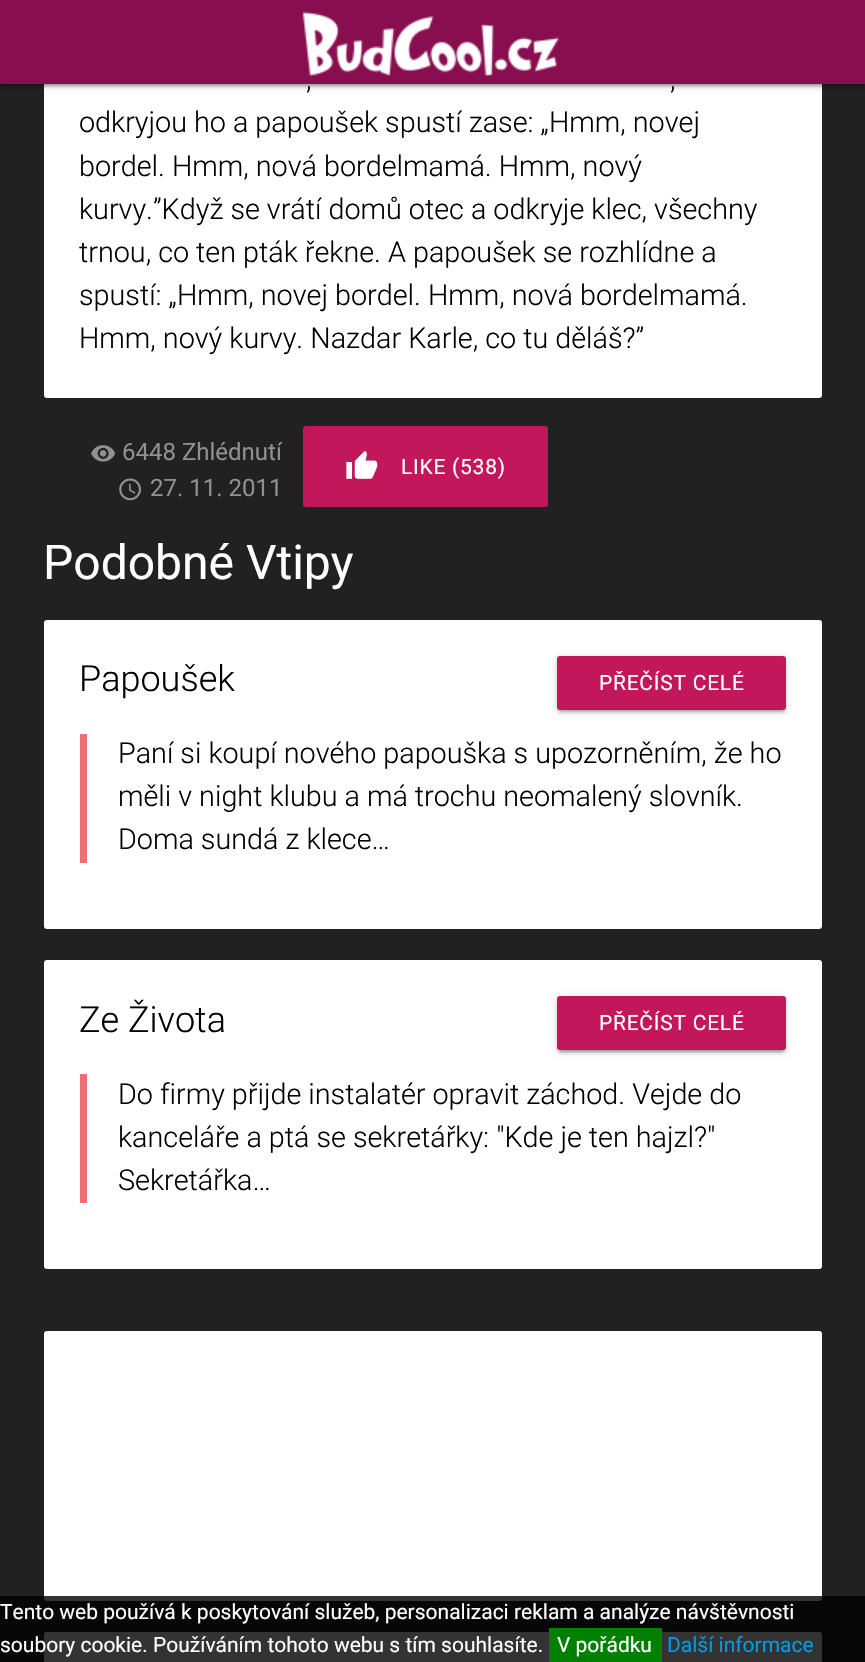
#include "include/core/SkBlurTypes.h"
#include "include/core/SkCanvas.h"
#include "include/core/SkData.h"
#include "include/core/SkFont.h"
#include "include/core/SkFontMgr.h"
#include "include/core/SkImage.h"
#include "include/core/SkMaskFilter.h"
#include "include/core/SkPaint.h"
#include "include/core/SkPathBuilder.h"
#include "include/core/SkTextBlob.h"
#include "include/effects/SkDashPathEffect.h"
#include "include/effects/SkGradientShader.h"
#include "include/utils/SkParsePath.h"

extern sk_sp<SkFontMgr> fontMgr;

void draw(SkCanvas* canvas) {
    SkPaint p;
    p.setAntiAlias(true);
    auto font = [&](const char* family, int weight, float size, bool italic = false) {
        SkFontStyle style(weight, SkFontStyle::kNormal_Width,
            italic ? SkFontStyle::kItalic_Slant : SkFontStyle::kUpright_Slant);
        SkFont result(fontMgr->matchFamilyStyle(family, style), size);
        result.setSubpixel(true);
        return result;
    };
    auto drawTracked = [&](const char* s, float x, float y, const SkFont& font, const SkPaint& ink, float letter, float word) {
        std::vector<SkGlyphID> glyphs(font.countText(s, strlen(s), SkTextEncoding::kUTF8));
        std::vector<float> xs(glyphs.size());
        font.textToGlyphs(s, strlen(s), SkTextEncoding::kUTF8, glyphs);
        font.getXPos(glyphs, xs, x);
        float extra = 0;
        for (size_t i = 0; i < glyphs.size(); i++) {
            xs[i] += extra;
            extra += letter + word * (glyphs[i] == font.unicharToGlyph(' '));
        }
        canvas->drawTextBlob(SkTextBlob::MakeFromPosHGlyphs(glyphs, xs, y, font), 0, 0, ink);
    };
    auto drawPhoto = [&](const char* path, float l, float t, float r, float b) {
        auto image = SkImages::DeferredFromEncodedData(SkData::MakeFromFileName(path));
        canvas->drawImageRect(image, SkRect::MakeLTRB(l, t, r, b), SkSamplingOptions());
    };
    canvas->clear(0xFF212121);
    p.setColor(0xFFFFFFFF);
    canvas->drawRoundRect(SkRect::MakeLTRB(44, -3, 822, 398), 3, 3, p);
    p.setColor(0x33000000);
    p.setMaskFilter(SkMaskFilter::MakeBlur(kNormal_SkBlurStyle, 1));
    canvas->drawRect(SkRect::MakeLTRB(3, 8, 863, 86), p);
    p.setMaskFilter(nullptr);
    p.setColor(0x1F000000);
    p.setMaskFilter(SkMaskFilter::MakeBlur(kNormal_SkBlurStyle, 4));
    canvas->drawRect(SkRect::MakeLTRB(0, 2, 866, 86), p);
    p.setMaskFilter(nullptr);
    p.setColor(0x24000000);
    p.setMaskFilter(SkMaskFilter::MakeBlur(kNormal_SkBlurStyle, 1.5f));
    canvas->drawRect(SkRect::MakeLTRB(0, 3, 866, 87), p);
    p.setMaskFilter(nullptr);
    p.setColor(0xFF880E4F);
    canvas->drawRect(SkRect::MakeLTRB(0, 0, 865, 84), p);
    drawPhoto("media/1.png", 302, 11, 560, 77);
    auto font1 = font("Roboto", 300, 28.75f);
    p.setColor(0xFF000000);
    {
        const struct { const char* s; float x, y; } items[] = {
            {",", 306, 89},
            {",", 670, 89},
            {"odkryjou ho a papoušek spustí zase: „Hmm, novej", 79, 132},
            {"bordel. Hmm, nová bordelmamá. Hmm, nový", 79, 176},
            {"kurvy.”Když se vrátí domů otec a odkryje klec, všechny", 79, 219},
            {"trnou, co ten pták řekne. A papoušek se rozhlídne a", 79, 262},
            {"spustí: „Hmm, novej bordel. Hmm, nová bordelmamá.", 79, 305},
            {"Hmm, nový kurvy. Nazdar Karle, co tu děláš?”", 79, 348},
        };
        for (auto [s, x, y] : items) {
            canvas->drawString(s, x, y, font1, p);
        }
    }
    drawPhoto("media/2.png", 91, 445, 116, 462);
    auto font2 = font("Roboto", 400, 24);
    p.setColor(0xFF909090);
    canvas->drawString("6448 Zhlédnutí", 122, 460, font2, p);
    drawPhoto("media/3.png", 119, 478, 141, 501);
    canvas->drawString("27. 11. 2011", 150, 496, font2, p);
    p.setColor(0xFFC2185B);
    canvas->drawRoundRect(SkRect::MakeLTRB(303, 426, 548, 507), 3, 3, p);
    drawPhoto("media/4.png", 346, 450, 378, 479);
    auto font3 = font("Roboto", 400, 21);
    p.setColor(0xFFFFFFFF);
    drawTracked("LIKE (538)", 401, 474, font3, p, 0.75f, 0);
    auto font4 = font("Roboto", 400, 48);
    canvas->drawString("Podobné Vtipy", 43, 579, font4, p);
    canvas->drawRoundRect(SkRect::MakeLTRB(44, 620, 822, 929), 3, 3, p);
    auto font5 = font("Roboto", 300, 36);
    p.setColor(0xFF000000);
    canvas->drawString("Papoušek", 79, 691, font5, p);
    p.setColor(0x33000000);
    p.setMaskFilter(SkMaskFilter::MakeBlur(kNormal_SkBlurStyle, 1));
    canvas->drawRect(SkRect::MakeLTRB(560, 663, 783, 711), p);
    p.setMaskFilter(nullptr);
    p.setColor(0x1F000000);
    p.setMaskFilter(SkMaskFilter::MakeBlur(kNormal_SkBlurStyle, 4));
    canvas->drawRoundRect(SkRect::MakeLTRB(557, 657, 786, 711), 3, 3, p);
    p.setMaskFilter(nullptr);
    p.setColor(0x24000000);
    p.setMaskFilter(SkMaskFilter::MakeBlur(kNormal_SkBlurStyle, 1.5f));
    canvas->drawRoundRect(SkRect::MakeLTRB(557, 659, 786, 713), 3, 3, p);
    p.setMaskFilter(nullptr);
    p.setColor(0xFFC2185B);
    canvas->drawRoundRect(SkRect::MakeLTRB(557, 656, 786, 710), 3, 3, p);
    p.setColor(0xFFFFFFFF);
    drawTracked("PŘEČÍST CELÉ", 599, 690, font3, p, 0.75f, 0);
    p.setColor(0xFFEE6E73);
    canvas->drawRect(SkRect::MakeLTRB(80, 734, 87, 863), p);
    p.setColor(0xFF000000);
    {
        const struct { const char* s; float x, y; } items[] = {
            {"Paní si koupí nového papouška s upozorněním, že ho", 118, 763},
            {"měli v night klubu a má trochu neomalený slovník.", 118, 806},
            {"Doma sundá z klece…", 118, 849},
        };
        for (auto [s, x, y] : items) {
            canvas->drawString(s, x, y, font1, p);
        }
    }
    p.setColor(0xFFFFFFFF);
    canvas->drawRoundRect(SkRect::MakeLTRB(44, 960, 822, 1269), 3, 3, p);
    p.setColor(0xFF000000);
    canvas->drawString("Ze Života", 79, 1032, font5, p);
    p.setColor(0x33000000);
    p.setMaskFilter(SkMaskFilter::MakeBlur(kNormal_SkBlurStyle, 1));
    canvas->drawRect(SkRect::MakeLTRB(560, 1004, 783, 1052), p);
    p.setMaskFilter(nullptr);
    p.setColor(0x1F000000);
    p.setMaskFilter(SkMaskFilter::MakeBlur(kNormal_SkBlurStyle, 4));
    canvas->drawRoundRect(SkRect::MakeLTRB(557, 998, 786, 1052), 3, 3, p);
    p.setMaskFilter(nullptr);
    p.setColor(0x24000000);
    p.setMaskFilter(SkMaskFilter::MakeBlur(kNormal_SkBlurStyle, 1.5f));
    canvas->drawRoundRect(SkRect::MakeLTRB(557, 999, 786, 1053), 3, 3, p);
    p.setMaskFilter(nullptr);
    p.setColor(0xFFC2185B);
    canvas->drawRoundRect(SkRect::MakeLTRB(557, 996, 786, 1050), 3, 3, p);
    p.setColor(0xFFFFFFFF);
    drawTracked("PŘEČÍST CELÉ", 599, 1030, font3, p, 0.75f, 0);
    p.setColor(0xFFEE6E73);
    canvas->drawRect(SkRect::MakeLTRB(80, 1074, 87, 1203), p);
    p.setColor(0xFF000000);
    {
        const struct { const char* s; float x, y; } items[] = {
            {"Do firmy přijde instalatér opravit záchod. Vejde do", 118, 1104},
            {"kanceláře a ptá se sekretářky: \"Kde je ten hajzl?\"", 118, 1147},
            {"Sekretářka…", 118, 1190},
        };
        for (auto [s, x, y] : items) {
            canvas->drawString(s, x, y, font1, p);
        }
    }
    p.setColor(0xFFFFFFFF);
    canvas->drawRoundRect(SkRect::MakeLTRB(44, 1331, 822, 1601), 3, 3, p);
    canvas->drawRoundRect(SkRect::MakeLTRB(44, 1632, 822, 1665), 3, 3, p);
    p.setColor(0xCC000000);
    canvas->drawRect(SkRect::MakeLTRB(0, 1596, 865, 1662), p);
    p.setColor(0xFFFFFFFF);
    canvas->drawString("Tento web používá k poskytování služeb, personalizaci reklam a analýze návštěvnosti", 0, 1619, font3, p);
    canvas->drawString("soubory cookie. Používáním tohoto webu s tím souhlasíte.", 0, 1652, font3, p);
    p.setColor(0xFF008000);
    canvas->drawRect(SkRect::MakeLTRB(549, 1628, 662, 1662), p);
    p.setColor(0xFFFFFFFF);
    canvas->drawString("V pořádku", 557, 1652, font3, p);
    p.setColor(0xFF039BE5);
    canvas->drawString("Další informace", 667, 1652, font3, p);
}
